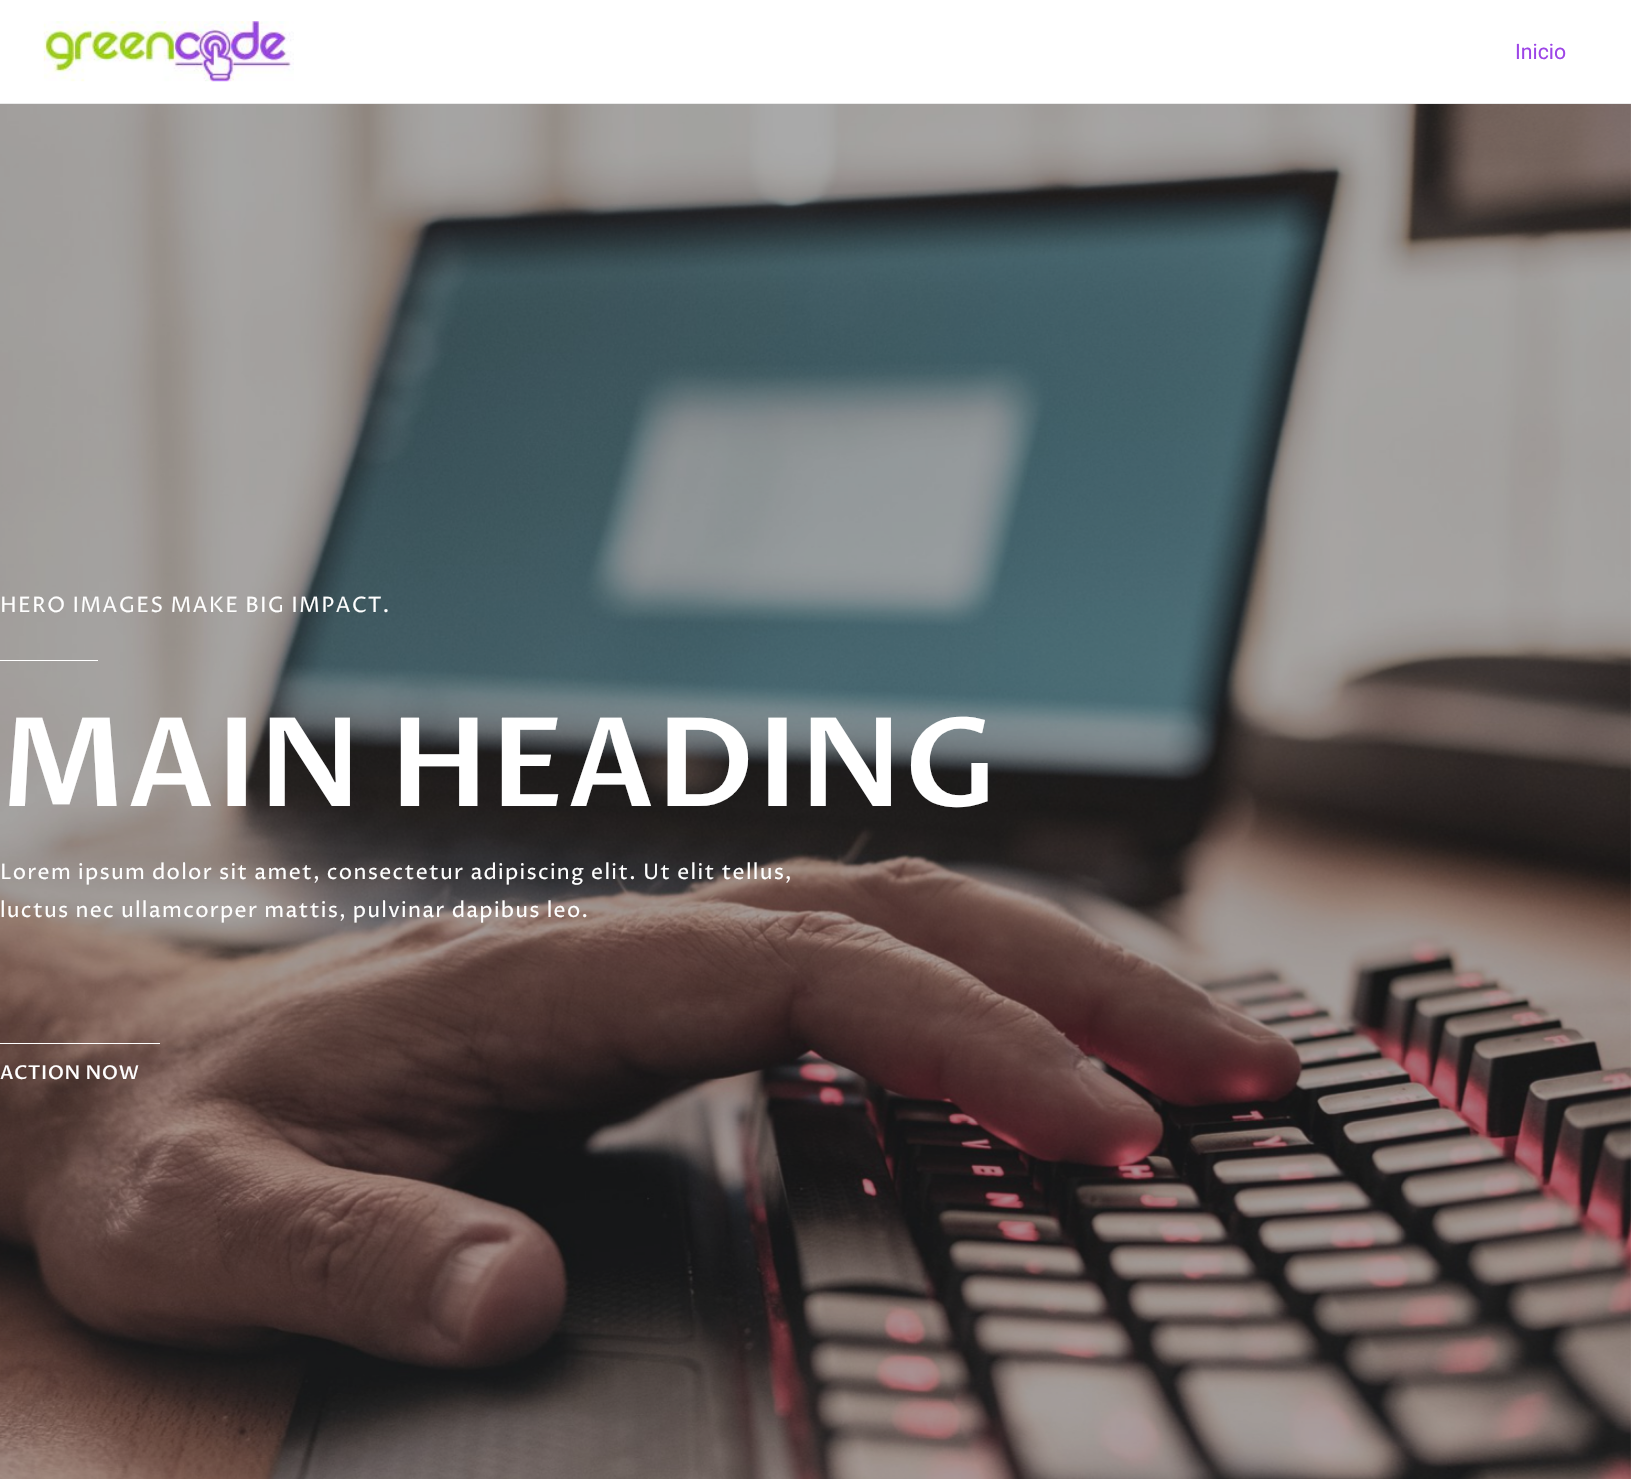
#include "include/core/SkBlurTypes.h"
#include "include/core/SkCanvas.h"
#include "include/core/SkData.h"
#include "include/core/SkFont.h"
#include "include/core/SkFontMgr.h"
#include "include/core/SkImage.h"
#include "include/core/SkMaskFilter.h"
#include "include/core/SkPaint.h"
#include "include/core/SkPathBuilder.h"
#include "include/core/SkTextBlob.h"
#include "include/effects/SkDashPathEffect.h"
#include "include/effects/SkGradientShader.h"
#include "include/utils/SkParsePath.h"

extern sk_sp<SkFontMgr> fontMgr;

void draw(SkCanvas* canvas) {
    SkPaint p;
    p.setAntiAlias(true);
    auto font = [&](const char* family, int weight, float size, bool italic = false) {
        SkFontStyle style(weight, SkFontStyle::kNormal_Width,
            italic ? SkFontStyle::kItalic_Slant : SkFontStyle::kUpright_Slant);
        SkFont result(fontMgr->matchFamilyStyle(family, style), size);
        result.setSubpixel(true);
        return result;
    };
    auto drawTracked = [&](const char* s, float x, float y, const SkFont& font, const SkPaint& ink, float letter, float word) {
        std::vector<SkGlyphID> glyphs(font.countText(s, strlen(s), SkTextEncoding::kUTF8));
        std::vector<float> xs(glyphs.size());
        font.textToGlyphs(s, strlen(s), SkTextEncoding::kUTF8, glyphs);
        font.getXPos(glyphs, xs, x);
        float extra = 0;
        for (size_t i = 0; i < glyphs.size(); i++) {
            xs[i] += extra;
            extra += letter + word * (glyphs[i] == font.unicharToGlyph(' '));
        }
        canvas->drawTextBlob(SkTextBlob::MakeFromPosHGlyphs(glyphs, xs, y, font), 0, 0, ink);
    };
    auto drawPhoto = [&](const char* path, float l, float t, float r, float b) {
        auto image = SkImages::DeferredFromEncodedData(SkData::MakeFromFileName(path));
        canvas->drawImageRect(image, SkRect::MakeLTRB(l, t, r, b), SkSamplingOptions());
    };
    canvas->clear(0xFFFFFFFF);
    p.setColor(0xFFEAEAEA);
    canvas->drawRect(SkRect::MakeLTRB(0, 103, 1631, 104), p);
    drawPhoto("media/1.png", 43, 21, 294, 82);
    auto font1 = font("Roboto", 400, 21.25f);
    p.setColor(0xFF9D45E7);
    canvas->drawString("Inicio", 1515, 59, font1, p);
    drawPhoto("media/2.png", 0, 104, 1631, 1479);
    auto font2 = font("Proza Libre", 400, 21.25f);
    p.setColor(0xFFFFFFFF);
    drawTracked("HERO IMAGES MAKE BIG IMPACT.", 0, 612, font2, p, 1.25f, 0);
    canvas->drawRect(SkRect::MakeLTRB(0, 660, 98, 661), p);
    auto font3 = font("Proza Libre", 600, 123.25f);
    drawTracked("MAIN HEADING", 0, 806, font3, p, 1.25f, 0);
    drawTracked("Lorem ipsum dolor sit amet, consectetur adipiscing elit. Ut elit tellus,", 0, 879, font2, p, 1.25f, 0);
    drawTracked("luctus nec ullamcorper mattis, pulvinar dapibus leo.", 0, 917, font2, p, 1.25f, 0);
    canvas->drawRect(SkRect::MakeLTRB(0, 1043, 160, 1044), p);
    auto font4 = font("Proza Libre", 500, 19);
    drawTracked("ACTION NOW", 0, 1079, font4, p, 0.6f, 0);
}
